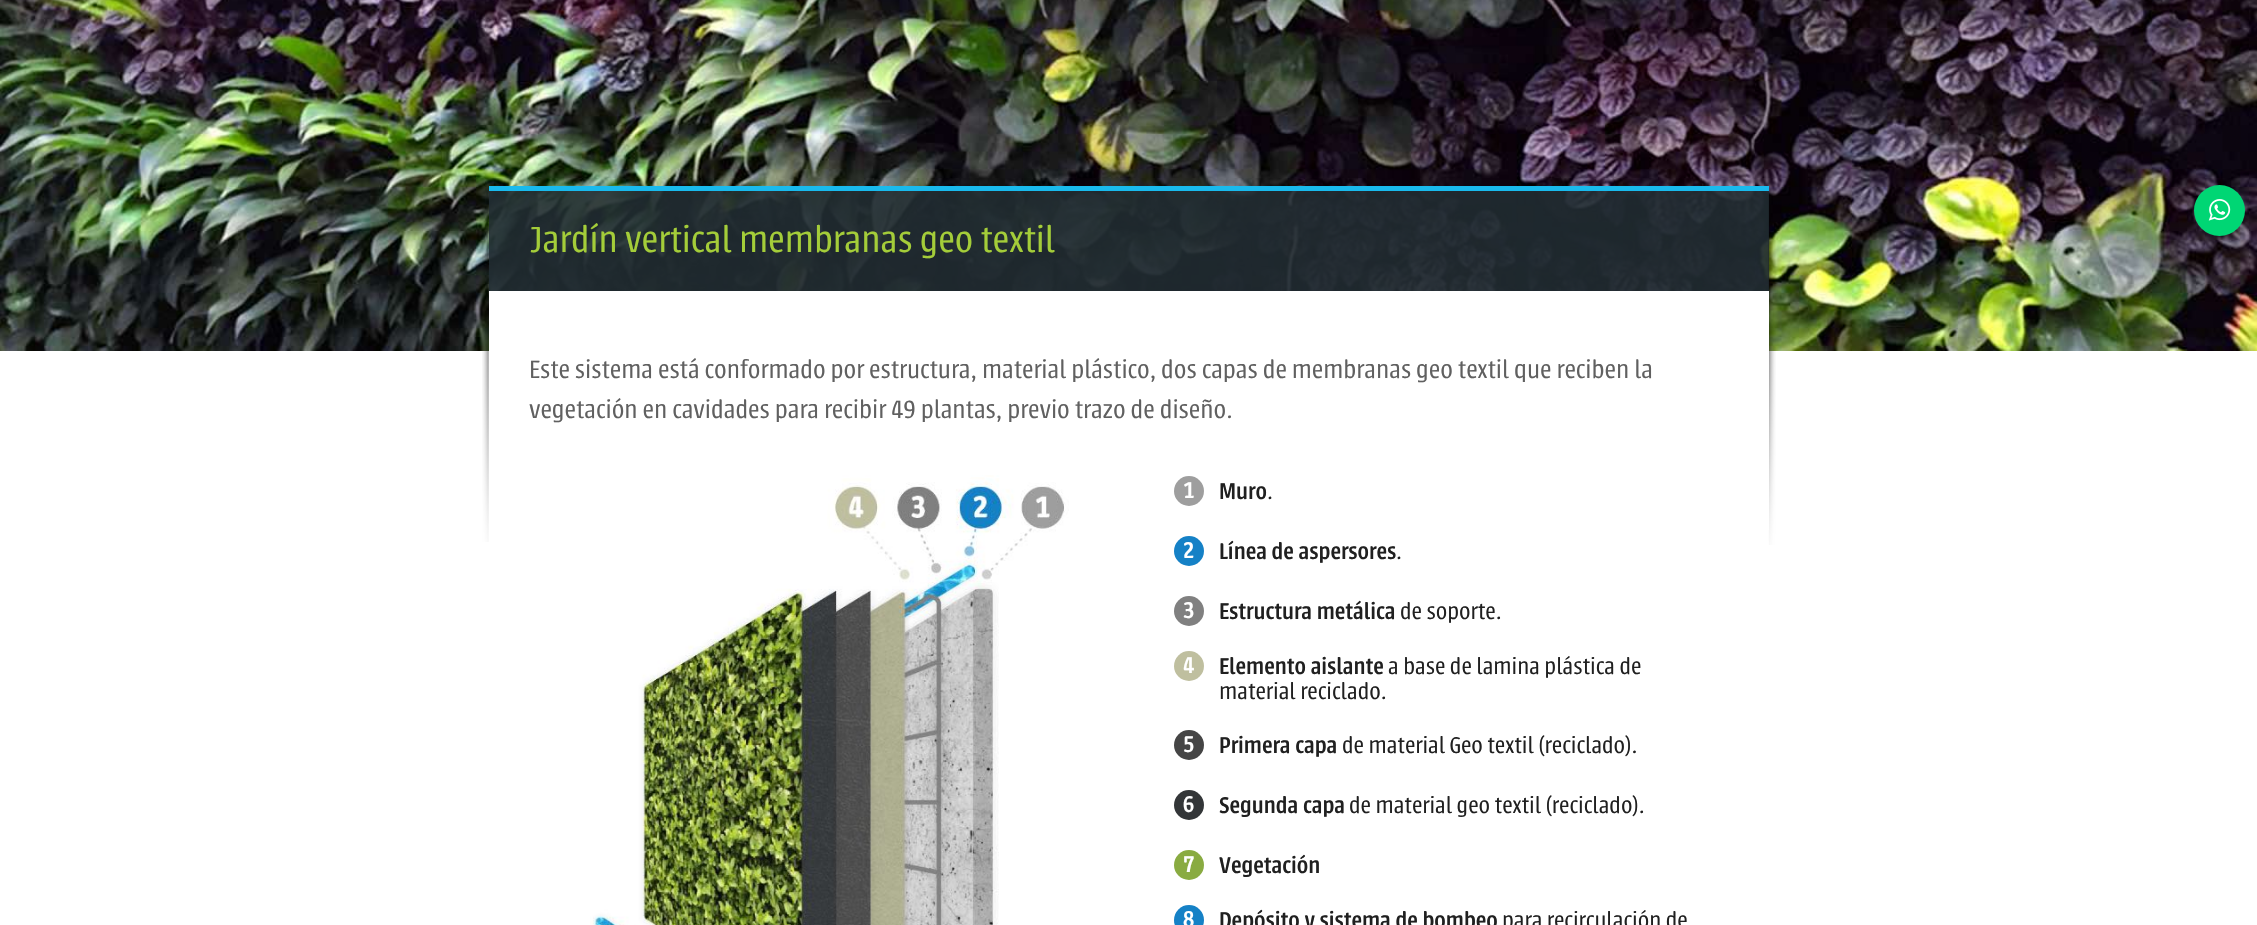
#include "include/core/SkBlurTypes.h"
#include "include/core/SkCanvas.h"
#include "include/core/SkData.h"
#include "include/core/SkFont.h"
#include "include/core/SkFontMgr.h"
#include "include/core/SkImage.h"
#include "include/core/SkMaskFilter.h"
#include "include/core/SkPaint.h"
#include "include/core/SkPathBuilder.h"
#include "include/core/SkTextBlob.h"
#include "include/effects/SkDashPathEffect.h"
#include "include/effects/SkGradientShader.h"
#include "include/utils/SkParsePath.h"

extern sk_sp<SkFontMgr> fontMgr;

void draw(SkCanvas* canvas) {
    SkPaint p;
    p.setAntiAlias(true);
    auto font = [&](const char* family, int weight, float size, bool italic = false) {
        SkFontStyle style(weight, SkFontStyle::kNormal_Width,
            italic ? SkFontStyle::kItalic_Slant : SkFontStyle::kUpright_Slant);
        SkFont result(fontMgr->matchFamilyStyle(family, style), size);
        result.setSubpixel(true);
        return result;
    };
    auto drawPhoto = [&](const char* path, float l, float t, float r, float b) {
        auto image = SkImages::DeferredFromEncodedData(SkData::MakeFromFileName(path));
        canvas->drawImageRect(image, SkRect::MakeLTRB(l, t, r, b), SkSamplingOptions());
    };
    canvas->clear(0xFFFFFFFF);
    drawPhoto("media/2.png", 0, 0, 2257, 351);
    p.setColor(0xFF00D674);
    canvas->drawCircle(2219.5f, 210.5f, 25.5f, p);
    drawPhoto("media/1.png", 2208, 199, 2231, 221);
    p.setColor(0xE6202B31);
    canvas->drawRect(SkRect::MakeLTRB(489, 191, 1769, 291), p);
    p.setColor(0xFF19BAED);
    canvas->drawRect(SkRect::MakeLTRB(489, 186, 1769, 191), p);
    drawPhoto("media/3.png", 482, 190, 489, 542);
    auto font1 = font("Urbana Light", 300, 40);
    p.setColor(0xFFA4CD39);
    canvas->drawString("Jardín vertical membranas geo textil", 529, 252, font1, p);
    drawPhoto("media/4.png", 1768, 188, 1776, 545);
    p.setColor(0xFFFFFFFF);
    canvas->drawRect(SkRect::MakeLTRB(489, 291, 1769, 530), p);
    auto font2 = font("Urbana Light", 300, 27.5f);
    p.setColor(0xFF606060);
    canvas->drawString("Este sistema está conformado por estructura, material plástico, dos capas de membranas geo textil que reciben la", 529, 378, font2, p);
    canvas->drawString("vegetación en cavidades para recibir 49 plantas, previo trazo de diseño.", 529, 418, font2, p);
    drawPhoto("media/5.png", 590, 475, 1069, 925);
    p.setColor(0xFF9E9E9E);
    canvas->drawCircle(1189, 491, 15, p);
    auto font3 = font("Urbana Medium", 500, 25);
    p.setColor(0xFFFFFFFF);
    canvas->drawString("1", 1183, 498, font3, p);
    p.setColor(0xFF202020);
    canvas->drawString("Muro", 1219, 499, font3, p);
    auto font4 = font("Urbana Light", 300, 25);
    canvas->drawString(".", 1267, 499, font4, p);
    p.setColor(0xFF1581C6);
    canvas->drawCircle(1189, 551, 15, p);
    p.setColor(0xFFFFFFFF);
    canvas->drawString("2", 1183, 558, font3, p);
    p.setColor(0xFF202020);
    canvas->drawString("Línea de aspersores", 1219, 559, font3, p);
    canvas->drawString(".", 1396, 559, font4, p);
    p.setColor(0xFF808080);
    canvas->drawCircle(1189, 611, 15, p);
    p.setColor(0xFFFFFFFF);
    canvas->drawString("3", 1183, 618, font3, p);
    p.setColor(0xFF202020);
    canvas->drawString("Estructura metálica", 1219, 619, font3, p);
    canvas->drawString("de soporte.", 1400, 619, font4, p);
    p.setColor(0xFFBFBF9F);
    canvas->drawCircle(1189, 666, 15, p);
    p.setColor(0xFFFFFFFF);
    canvas->drawString("4", 1183, 673, font3, p);
    p.setColor(0xFF202020);
    canvas->drawString("Elemento aislante", 1219, 674, font3, p);
    canvas->drawString("a base de lamina plástica de", 1388, 674, font4, p);
    canvas->drawString("material reciclado.", 1219, 699, font4, p);
    p.setColor(0xFF454545);
    canvas->drawCircle(1189, 745, 15, p);
    p.setColor(0xFFFFFFFF);
    canvas->drawString("5", 1183, 752, font3, p);
    p.setColor(0xFF202020);
    canvas->drawString("Primera capa", 1219, 753, font3, p);
    canvas->drawString("de material Geo textil (reciclado).", 1342, 753, font4, p);
    p.setColor(0xFF333638);
    canvas->drawCircle(1189, 805, 15, p);
    p.setColor(0xFFFFFFFF);
    canvas->drawString("6", 1183, 812, font3, p);
    p.setColor(0xFF202020);
    canvas->drawString("Segunda capa", 1219, 813, font3, p);
    canvas->drawString("de material geo textil (reciclado).", 1349, 813, font4, p);
    p.setColor(0xFF89AB41);
    canvas->drawCircle(1189, 865, 15, p);
    p.setColor(0xFFFFFFFF);
    canvas->drawString("7", 1183, 872, font3, p);
    p.setColor(0xFF202020);
    canvas->drawString("Vegetación", 1219, 873, font3, p);
    p.setColor(0xFF1581C6);
    canvas->drawCircle(1189, 920, 15, p);
    p.setColor(0xFFFFFFFF);
    canvas->drawString("8", 1183, 927, font3, p);
    p.setColor(0xFF202020);
    canvas->drawString("Depósito y sistema de bombeo", 1219, 928, font3, p);
    canvas->drawString("para recirculación de", 1502, 928, font4, p);
}
